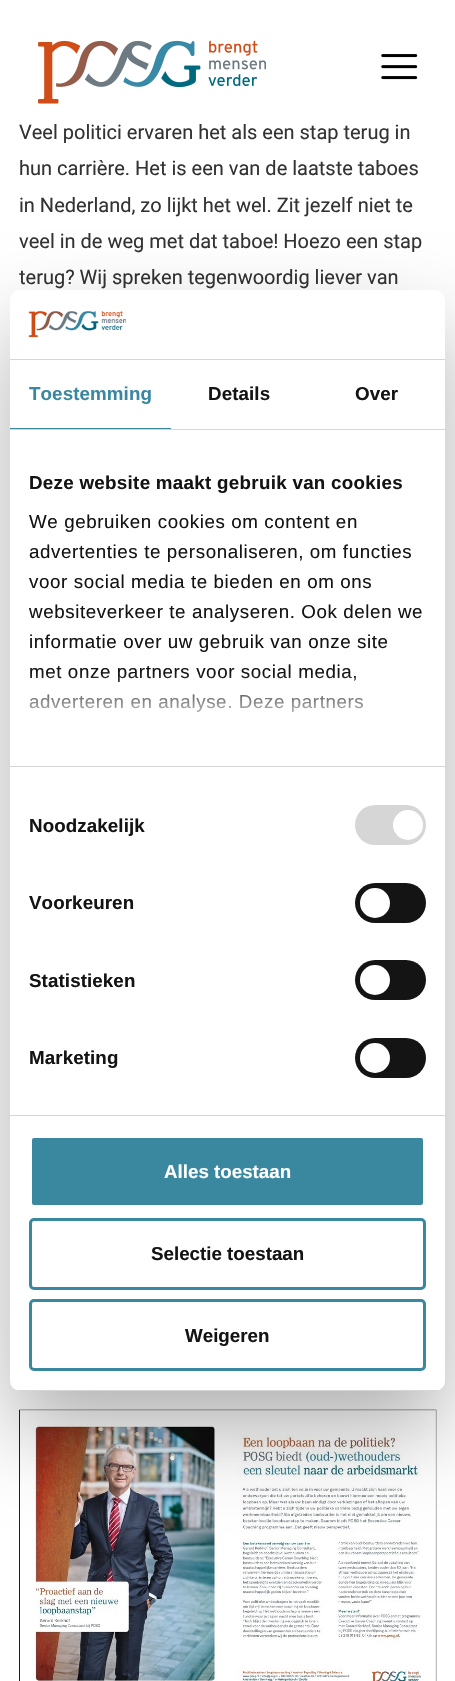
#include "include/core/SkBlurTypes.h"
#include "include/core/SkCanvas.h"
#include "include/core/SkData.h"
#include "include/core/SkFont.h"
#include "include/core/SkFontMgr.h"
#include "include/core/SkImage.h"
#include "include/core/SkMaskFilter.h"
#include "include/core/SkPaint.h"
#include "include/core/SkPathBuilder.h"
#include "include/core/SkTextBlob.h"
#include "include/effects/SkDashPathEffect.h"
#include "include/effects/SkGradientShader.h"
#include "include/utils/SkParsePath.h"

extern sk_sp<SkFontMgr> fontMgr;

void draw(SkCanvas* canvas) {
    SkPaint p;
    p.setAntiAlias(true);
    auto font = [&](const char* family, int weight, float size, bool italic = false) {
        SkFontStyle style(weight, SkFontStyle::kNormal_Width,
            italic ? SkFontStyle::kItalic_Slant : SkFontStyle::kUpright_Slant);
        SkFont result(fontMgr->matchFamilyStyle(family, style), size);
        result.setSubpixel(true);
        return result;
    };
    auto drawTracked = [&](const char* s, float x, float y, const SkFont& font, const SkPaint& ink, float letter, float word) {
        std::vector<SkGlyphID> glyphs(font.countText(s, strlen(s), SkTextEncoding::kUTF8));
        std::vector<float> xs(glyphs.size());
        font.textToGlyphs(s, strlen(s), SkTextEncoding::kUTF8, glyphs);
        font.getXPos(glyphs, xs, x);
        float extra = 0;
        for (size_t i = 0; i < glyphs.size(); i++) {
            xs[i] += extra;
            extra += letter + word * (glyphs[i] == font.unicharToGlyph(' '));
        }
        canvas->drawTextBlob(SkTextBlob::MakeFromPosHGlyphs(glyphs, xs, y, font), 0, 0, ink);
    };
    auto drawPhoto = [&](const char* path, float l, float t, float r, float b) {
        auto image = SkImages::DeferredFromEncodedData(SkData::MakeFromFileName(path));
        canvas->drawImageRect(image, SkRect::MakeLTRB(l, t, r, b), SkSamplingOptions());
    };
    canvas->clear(0xFFFFFFFF);
    drawPhoto("media/1.png", 38, 40, 266, 104);
    drawPhoto("media/2.png", 381, 54, 418, 80);
    auto font1 = font("Roboto", 400, 20);
    p.setColor(0xFF333333);
    {
        const struct { const char* s; float x, y; } items[] = {
            {"Veel politici ervaren het als een stap terug in", 19, 139},
            {"hun carrière. Het is een van de laatste taboes", 19, 175},
            {"in Nederland, zo lijkt het wel. Zit jezelf niet te", 19, 212},
            {"veel in de weg met dat taboe! Hoezo een stap", 19, 248},
            {"terug? Wij spreken tegenwoordig liever van", 19, 284},
        };
        for (auto [s, x, y] : items) {
            canvas->drawString(s, x, y, font1, p);
        }
    }
    drawPhoto("media/3.png", 19, 1409, 437, 1681);
    p.setColor(0x4D000000);
    p.setMaskFilter(SkMaskFilter::MakeBlur(kNormal_SkBlurStyle, 42.5f));
    canvas->drawRoundRect(SkRect::MakeLTRB(10, 330, 445, 1431), 10, 10, p);
    p.setMaskFilter(nullptr);
    p.setColor(0xFFFFFFFF);
    canvas->drawRoundRect(SkRect::MakeLTRB(10, 290, 445, 1391), 10, 10, p);
    p.setColor(0xFFD6D6D6);
    canvas->drawRect(SkRect::MakeLTRB(10, 359, 445, 360), p);
    drawPhoto("media/4.png", 28, 311, 127, 338);
    canvas->drawRect(SkRect::MakeLTRB(10, 429, 445, 430), p);
    p.setColor(0xFF3988A0);
    canvas->drawRect(SkRect::MakeLTRB(10, 428, 171, 429), p);
    auto font2 = font("Liberation Sans", 700, 18.75f);
    drawTracked("Toestemming", 29, 400, font2, p, 0.1f, 0);
    p.setColor(0xFF141414);
    drawTracked("Details", 208, 400, font2, p, 0.1f, 0);
    drawTracked("Over", 355, 400, font2, p, 0.1f, 0);
    p.setColor(0xFFD6D6D6);
    canvas->drawRect(SkRect::MakeLTRB(10, 766, 445, 767), p);
    p.setColor(0xFF141414);
    drawTracked("Deze website maakt gebruik van cookies", 29, 489, font2, p, 0.3f, 0);
    auto font3 = font("Liberation Sans", 400, 18.75f);
    {
        const struct { const char* s; float x, y; } items[] = {
            {"We gebruiken cookies om content en", 29, 528},
            {"advertenties te personaliseren, om functies", 29, 558},
            {"voor social media te bieden en om ons", 29, 588},
            {"websiteverkeer te analyseren. Ook delen we", 29, 618},
            {"informatie over uw gebruik van onze site", 29, 648},
            {"met onze partners voor social media,", 29, 678},
            {"adverteren en analyse. Deze partners", 29, 708},
        };
        for (auto [s, x, y] : items) {
            drawTracked(s, x, y, font3, p, 0.6f, 0);
        }
    }
    {
        const SkColor colors[] = {0xFFFFFFFF, 0xCCFFFFFF, 0x00FFFFFF};
        const float stops[] = {0, 0.5f, 1};
        const SkPoint ends[] = {{219, 767}, {219, 673}};
        p.setShader(SkGradientShader::MakeLinear(ends, colors, stops, 3, SkTileMode::kClamp));
        p.setAlpha(255);
    }
    canvas->drawRect(SkRect::MakeLTRB(29, 674, 364, 712), p);
    p.setShader(nullptr);
    p.setColor(0xFFD6D6D6);
    canvas->drawRect(SkRect::MakeLTRB(10, 1115, 445, 1116), p);
    p.setColor(0xFF141414);
    drawTracked("Noodzakelijk", 29, 832, font2, p, 0.1f, 0);
    p.setColor(0xFFD6D6D6);
    canvas->drawRoundRect(SkRect::MakeLTRB(355, 805, 426, 845), 20, 20, p);
    p.setColor(0xFFFFFFFF);
    canvas->drawCircle(408, 825, 15, p);
    p.setColor(0xFF141414);
    drawTracked("Voorkeuren", 29, 909, font2, p, 0.1f, 0);
    canvas->drawRoundRect(SkRect::MakeLTRB(355, 883, 426, 923), 20, 20, p);
    p.setColor(0xFFFFFFFF);
    canvas->drawCircle(375, 903, 15, p);
    p.setColor(0xFF141414);
    drawTracked("Statistieken", 29, 987, font2, p, 0.1f, 0);
    canvas->drawRoundRect(SkRect::MakeLTRB(355, 960, 426, 1000), 20, 20, p);
    p.setColor(0xFFFFFFFF);
    canvas->drawCircle(375, 980, 15, p);
    p.setColor(0xFF141414);
    drawTracked("Marketing", 29, 1064, font2, p, 0.1f, 0);
    canvas->drawRoundRect(SkRect::MakeLTRB(355, 1038, 426, 1078), 20, 20, p);
    p.setColor(0xFFFFFFFF);
    canvas->drawCircle(375, 1058, 15, p);
    canvas->save();
    canvas->clipPath(SkPathBuilder().moveTo(20, 290).lineTo(435, 290).cubicTo(440.5f, 290, 445, 294.5f, 445, 300).lineTo(445, 1381).cubicTo(445, 1386.5f, 440.5f, 1391, 435, 1391).lineTo(20, 1391).cubicTo(14.5f, 1391, 10, 1386.5f, 10, 1381).lineTo(10, 300).cubicTo(10, 294.5f, 14.5f, 290, 20, 290).close().detach(), true);
    p.setColor(0xFFD6D6D6);
    canvas->drawRect(SkRect::MakeLTRB(10, 1390, 445, 1391), p);
    canvas->restore();
    p.setColor(0xFF3988A0);
    canvas->drawRoundRect(SkRect::MakeLTRB(30.5f, 1136.5f, 424.5f, 1206.5f), 3.5f, 3.5f, p);
    p.setStyle(SkPaint::kStroke_Style);
    p.setStrokeWidth(3);
    p.setColor(0xFFFFFFFF);
    canvas->drawRoundRect(SkRect::MakeLTRB(30.5f, 1136.5f, 424.5f, 1206.5f), 3.5f, 3.5f, p);
    p.setStyle(SkPaint::kFill_Style);
    canvas->drawString("Alles toestaan", 164, 1178, font2, p);
    p.setStyle(SkPaint::kStroke_Style);
    p.setColor(0xFF3988A0);
    canvas->drawRoundRect(SkRect::MakeLTRB(30.5f, 1219.5f, 424.5f, 1288.5f), 3.5f, 3.5f, p);
    p.setStyle(SkPaint::kFill_Style);
    p.setColor(0xFF141414);
    canvas->drawString("Selectie toestaan", 151, 1260, font2, p);
    p.setStyle(SkPaint::kStroke_Style);
    p.setColor(0xFF3988A0);
    canvas->drawRoundRect(SkRect::MakeLTRB(30.5f, 1300.5f, 424.5f, 1369.5f), 3.5f, 3.5f, p);
    p.setStyle(SkPaint::kFill_Style);
    p.setColor(0xFF141414);
    canvas->drawString("Weigeren", 185, 1342, font2, p);
}
